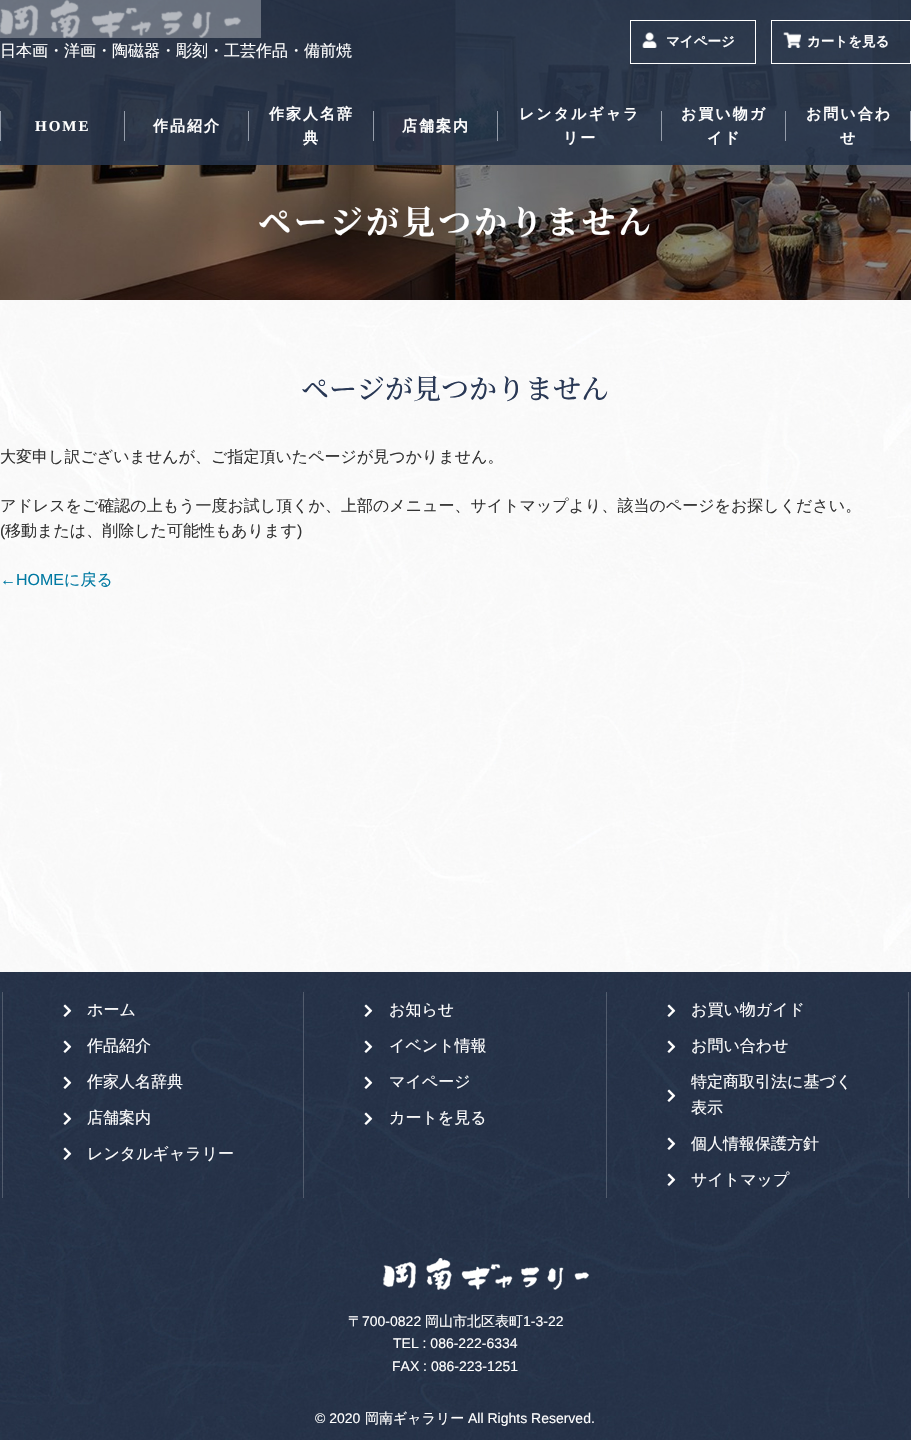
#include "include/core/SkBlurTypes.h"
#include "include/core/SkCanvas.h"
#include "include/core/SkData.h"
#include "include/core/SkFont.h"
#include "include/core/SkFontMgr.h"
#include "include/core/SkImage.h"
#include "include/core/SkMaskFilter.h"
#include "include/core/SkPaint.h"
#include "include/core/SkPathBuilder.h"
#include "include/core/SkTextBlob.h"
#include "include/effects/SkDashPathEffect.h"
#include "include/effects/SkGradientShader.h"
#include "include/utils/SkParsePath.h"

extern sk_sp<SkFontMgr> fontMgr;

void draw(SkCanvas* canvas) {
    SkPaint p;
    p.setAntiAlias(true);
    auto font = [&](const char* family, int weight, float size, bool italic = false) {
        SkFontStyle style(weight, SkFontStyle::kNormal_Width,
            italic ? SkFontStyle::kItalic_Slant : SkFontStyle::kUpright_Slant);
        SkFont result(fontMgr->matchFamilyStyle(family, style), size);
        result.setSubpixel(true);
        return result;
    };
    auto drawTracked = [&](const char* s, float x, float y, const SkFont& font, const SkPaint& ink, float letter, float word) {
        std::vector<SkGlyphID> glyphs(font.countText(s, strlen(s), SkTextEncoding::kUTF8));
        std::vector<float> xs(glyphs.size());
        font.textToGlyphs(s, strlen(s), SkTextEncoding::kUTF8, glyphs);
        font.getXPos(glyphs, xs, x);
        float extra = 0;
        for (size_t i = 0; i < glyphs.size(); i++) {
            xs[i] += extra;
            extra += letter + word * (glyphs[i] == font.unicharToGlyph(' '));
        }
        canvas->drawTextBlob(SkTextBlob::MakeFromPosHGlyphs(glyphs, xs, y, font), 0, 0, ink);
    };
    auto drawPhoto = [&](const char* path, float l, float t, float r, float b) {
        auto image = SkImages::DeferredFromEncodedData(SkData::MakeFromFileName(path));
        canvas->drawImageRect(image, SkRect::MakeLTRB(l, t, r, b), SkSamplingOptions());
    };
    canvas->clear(0xFFFFFFFF);
    drawPhoto("media/1.png", 0, 300, 911, 972);
    drawPhoto("media/6.png", 0, 0, 911, 300);
    drawPhoto("media/2.png", 0, 0, 911, 165);
    p.setColor(0x4DFFFFFF);
    canvas->drawRect(SkRect::MakeLTRB(0, 0, 261, 38), p);
    drawPhoto("media/3.png", 0, 0, 241, 38);
    auto font1 = font("WenQuanYi Zen Hei", 500, 16);
    p.setColor(0xFFFFFFFF);
    canvas->drawString("日本画・洋画・陶磁器・彫刻・工芸作品・備前焼", 0, 56, font1, p);
    drawPhoto("media/4.png", 642, 32, 657, 48);
    p.setStyle(SkPaint::kStroke_Style);
    p.setStrokeWidth(1);
    canvas->drawRect(SkRect::MakeLTRB(630.5f, 20.5f, 755.5f, 63.5f), p);
    auto font2 = font("WenQuanYi Zen Hei", 700, 13.5f);
    p.setStyle(SkPaint::kFill_Style);
    canvas->drawString("マイページ", 666, 46, font2, p);
    drawPhoto("media/5.png", 783, 32, 801, 48);
    p.setStyle(SkPaint::kStroke_Style);
    canvas->drawRect(SkRect::MakeLTRB(771.5f, 20.5f, 910.5f, 63.5f), p);
    p.setStyle(SkPaint::kFill_Style);
    canvas->drawString("カートを見る", 807, 46, font2, p);
    p.setColor(0xFF949CAA);
    canvas->drawRect(SkRect::MakeLTRB(0, 111, 1, 141), p);
    auto font3 = font("Liberation Serif", 700, 15);
    p.setColor(0xFFFFFFFF);
    drawTracked("HOME", 35, 131, font3, p, 2, 0);
    p.setColor(0xFF949CAA);
    canvas->drawRect(SkRect::MakeLTRB(124, 111, 125, 141), p);
    auto font4 = font("WenQuanYi Zen Hei", 700, 15);
    p.setColor(0xFFFFFFFF);
    drawTracked("作品紹介", 153, 131, font4, p, 2, 0);
    p.setColor(0xFF949CAA);
    canvas->drawRect(SkRect::MakeLTRB(248, 111, 249, 141), p);
    p.setColor(0xFFFFFFFF);
    drawTracked("作家人名辞", 269, 119, font4, p, 2, 0);
    drawTracked("典", 303, 143, font4, p, 2, 0);
    p.setColor(0xFF949CAA);
    canvas->drawRect(SkRect::MakeLTRB(373, 111, 374, 141), p);
    p.setColor(0xFFFFFFFF);
    drawTracked("店舗案内", 402, 131, font4, p, 2, 0);
    p.setColor(0xFF949CAA);
    canvas->drawRect(SkRect::MakeLTRB(497, 111, 498, 141), p);
    p.setColor(0xFFFFFFFF);
    drawTracked("レンタルギャラ", 519, 119, font4, p, 2, 0);
    drawTracked("リー", 563, 143, font4, p, 2, 0);
    p.setColor(0xFF949CAA);
    canvas->drawRect(SkRect::MakeLTRB(661, 111, 662, 141), p);
    p.setColor(0xFFFFFFFF);
    drawTracked("お買い物ガ", 681, 119, font4, p, 2, 0);
    drawTracked("イド", 707, 143, font4, p, 2, 0);
    p.setColor(0xFF949CAA);
    canvas->drawRect(SkRect::MakeLTRB(785, 111, 786, 141), p);
    p.setColor(0xFFFFFFFF);
    drawTracked("お問い合わ", 806, 119, font4, p, 2, 0);
    drawTracked("せ", 840, 143, font4, p, 2, 0);
    p.setColor(0xFF949CAA);
    canvas->drawRect(SkRect::MakeLTRB(910, 111, 911, 141), p);
    auto font5 = font("Noto Serif JP", 700, 33);
    p.setColor(0xFFFFFFFF);
    drawTracked("ページが見つかりません", 258, 234, font5, p, 3, 0);
    auto font6 = font("Noto Serif JP", 500, 28);
    p.setColor(0xFF293855);
    canvas->drawString("ページが見つかりません", 301, 399, font6, p);
    p.setColor(0xFF333333);
    canvas->drawString("大変申し訳ございませんが、ご指定頂いたページが見つかりません。", 0, 462, font1, p);
    canvas->drawString("アドレスをご確認の上もう一度お試し頂くか、上部のメニュー、サイトマップより、該当のページをお探しください。", 0, 511, font1, p);
    auto font7 = font("Liberation Sans", 400, 16);
    canvas->drawString("(", 0, 536, font7, p);
    canvas->drawString("移動または、削除した可能性もあります", 5, 536, font1, p);
    canvas->drawString(")", 297, 536, font7, p);
    p.setColor(0xFF0079A2);
    canvas->drawString("←HOME", 0, 585, font7, p);
    canvas->drawString("に戻る", 64, 585, font1, p);
    drawPhoto("media/7.png", 0, 972, 911, 1440);
    p.setColor(0x33FFFFFF);
    canvas->drawRect(SkRect::MakeLTRB(303, 992, 304, 1198), p);
    canvas->drawRect(SkRect::MakeLTRB(2, 992, 3, 1198), p);
    drawPhoto("media/8.png", 63, 1004, 72, 1017);
    p.setColor(0xFFFFFFFF);
    canvas->drawString("ホーム", 87, 1015, font1, p);
    drawPhoto("media/9.png", 63, 1040, 72, 1053);
    canvas->drawString("作品紹介", 87, 1051, font1, p);
    drawPhoto("media/10.png", 63, 1076, 72, 1089);
    canvas->drawString("作家人名辞典", 87, 1087, font1, p);
    drawPhoto("media/11.png", 63, 1112, 72, 1125);
    canvas->drawString("店舗案内", 87, 1123, font1, p);
    drawPhoto("media/12.png", 63, 1147, 72, 1160);
    canvas->drawString("レンタルギャラリー", 87, 1159, font1, p);
    p.setColor(0x33FFFFFF);
    canvas->drawRect(SkRect::MakeLTRB(606, 992, 607, 1198), p);
    drawPhoto("media/13.png", 364, 1004, 373, 1017);
    p.setColor(0xFFFFFFFF);
    canvas->drawString("お知らせ", 389, 1015, font1, p);
    drawPhoto("media/14.png", 364, 1040, 373, 1053);
    canvas->drawString("イベント情報", 389, 1051, font1, p);
    drawPhoto("media/15.png", 364, 1076, 373, 1089);
    canvas->drawString("マイページ", 389, 1087, font1, p);
    drawPhoto("media/16.png", 364, 1112, 373, 1125);
    canvas->drawString("カートを見る", 389, 1123, font1, p);
    p.setColor(0x33FFFFFF);
    canvas->drawRect(SkRect::MakeLTRB(908, 992, 909, 1198), p);
    drawPhoto("media/17.png", 667, 1004, 676, 1017);
    p.setColor(0xFFFFFFFF);
    canvas->drawString("お買い物ガイド", 691, 1015, font1, p);
    drawPhoto("media/18.png", 667, 1040, 676, 1053);
    canvas->drawString("お問い合わせ", 691, 1051, font1, p);
    canvas->drawString("特定商取引法に基づく", 691, 1087, font1, p);
    drawPhoto("media/19.png", 667, 1089, 676, 1102);
    canvas->drawString("表示", 691, 1113, font1, p);
    drawPhoto("media/20.png", 667, 1137, 676, 1150);
    canvas->drawString("個人情報保護方針", 691, 1149, font1, p);
    drawPhoto("media/21.png", 667, 1173, 676, 1186);
    canvas->drawString("サイトマップ", 691, 1185, font1, p);
    drawPhoto("media/22.png", 383, 1258, 589, 1290);
    auto font8 = font("WenQuanYi Zen Hei", 500, 14);
    canvas->drawString("〒", 348, 1326, font8, p);
    auto font9 = font("Liberation Sans", 400, 14);
    canvas->drawString("700-0822", 362, 1326, font9, p);
    canvas->drawString("岡山市北区表町", 425, 1326, font8, p);
    {
        const struct { const char* s; float x, y; } items[] = {
            {"1-3-22", 523, 1326},
            {"TEL : 086-222-6334", 393, 1348},
            {"FAX : 086-223-1251", 392, 1371},
            {"© 2020", 315, 1423},
        };
        for (auto [s, x, y] : items) {
            canvas->drawString(s, x, y, font9, p);
        }
    }
    canvas->drawString("岡南ギャラリー", 365, 1423, font8, p);
    canvas->drawString("All Rights Reserved.", 468, 1423, font9, p);
}
